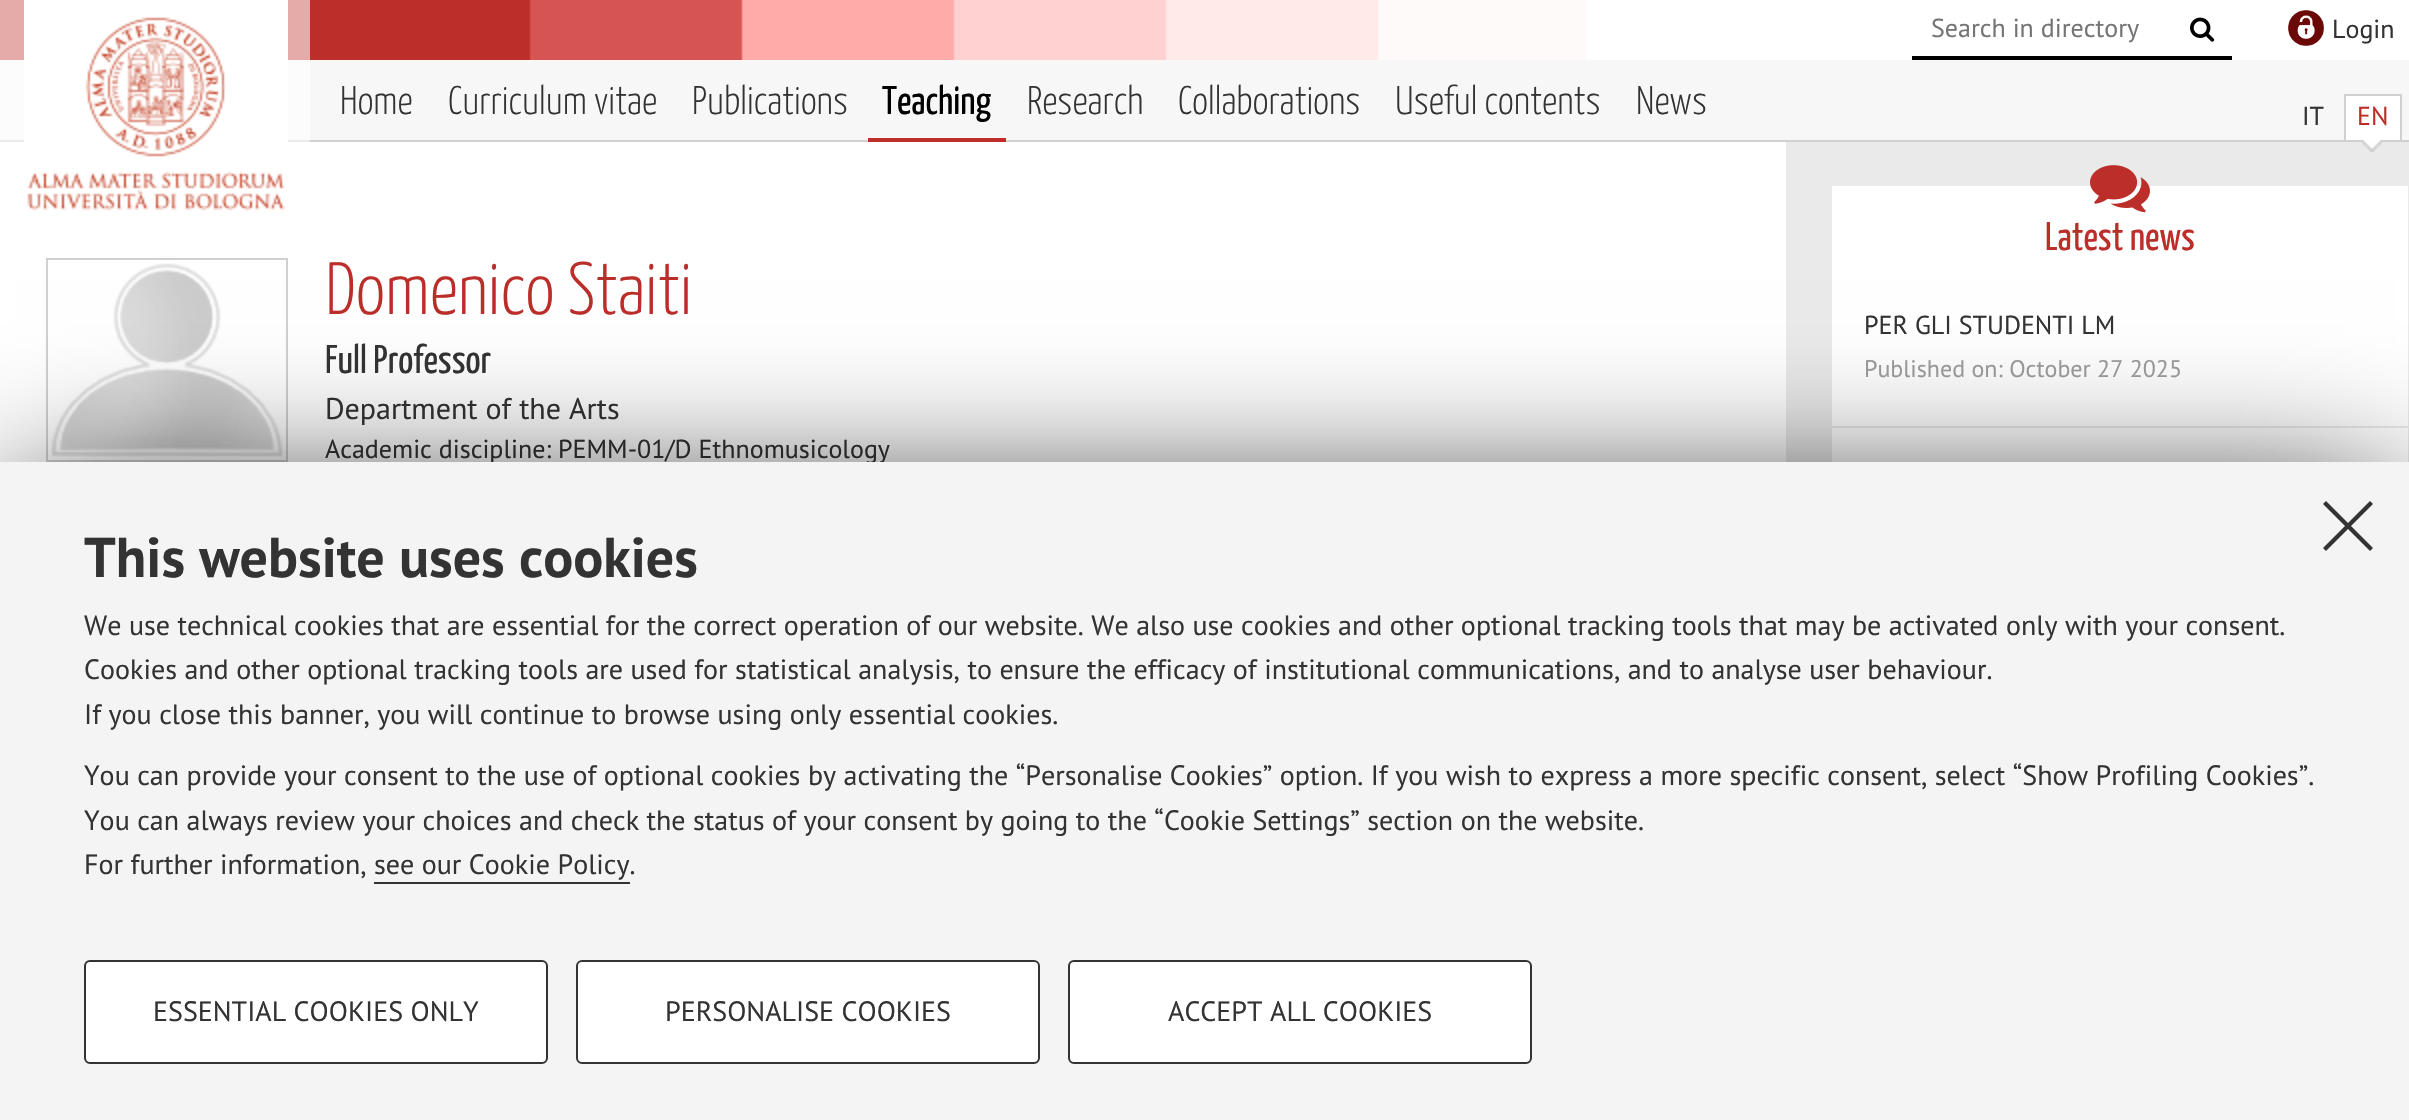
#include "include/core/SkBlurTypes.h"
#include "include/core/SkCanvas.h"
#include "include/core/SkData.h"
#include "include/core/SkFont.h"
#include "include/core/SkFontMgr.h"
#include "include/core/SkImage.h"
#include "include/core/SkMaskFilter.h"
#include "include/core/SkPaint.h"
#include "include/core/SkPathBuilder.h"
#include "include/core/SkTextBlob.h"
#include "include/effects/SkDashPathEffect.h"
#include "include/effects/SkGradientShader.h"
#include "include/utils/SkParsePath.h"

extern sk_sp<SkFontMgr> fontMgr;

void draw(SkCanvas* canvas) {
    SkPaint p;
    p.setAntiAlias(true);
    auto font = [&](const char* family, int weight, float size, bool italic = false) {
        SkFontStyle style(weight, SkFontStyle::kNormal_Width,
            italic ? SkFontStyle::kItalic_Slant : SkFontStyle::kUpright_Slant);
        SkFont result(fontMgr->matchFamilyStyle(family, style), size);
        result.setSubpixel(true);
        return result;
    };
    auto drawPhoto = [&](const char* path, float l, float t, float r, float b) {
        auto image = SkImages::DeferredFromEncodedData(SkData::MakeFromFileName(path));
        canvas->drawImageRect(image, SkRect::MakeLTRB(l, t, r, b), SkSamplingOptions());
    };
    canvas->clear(0xFFEAEAEA);
    {
        const struct { float l, t, r, b; SkColor color; } items[] = {
            {310, 0, 529, 60, 0xFFBB2E29},
            {0, 0, 310, 60, 0xFFE4ABA9},
            {1587, 0, 2409, 60, 0xFFFFFFFF},
        };
        for (auto [l, t, r, b, color] : items) {
            p.setColor(color);
            canvas->drawRect(SkRect::MakeLTRB(l, t, r, b), p);
        }
    }
    drawPhoto("media/1.png", 529, 0, 1587, 60);
    p.setColor(0xFFFCFCFC);
    canvas->drawRect(SkRect::MakeLTRB(0, 60, 310, 140), p);
    p.setColor(0xFFFFFFFF);
    canvas->drawRect(SkRect::MakeLTRB(0, 142, 1786, 462), p);
    drawPhoto("media/2.png", 24, 0, 288, 211);
    p.setColor(0xFF000000);
    canvas->drawRect(SkRect::MakeLTRB(1912, 56, 2232, 60), p);
    auto font1 = font("PT Sans", 400, 26);
    p.setColor(0xFF757575);
    canvas->drawString("Search in directory", 1931, 37, font1, p);
    drawPhoto("media/3.png", 2190, 17, 2215, 42);
    drawPhoto("media/4.png", 2288, 10, 2324, 46);
    p.setColor(0xFF333333);
    canvas->drawString("Login", 2332, 38, font1, p);
    p.setColor(0xFFF7F7F7);
    canvas->drawRect(SkRect::MakeLTRB(310, 60, 2409, 140), p);
    p.setColor(0xFFD0D0D0);
    canvas->drawRect(SkRect::MakeLTRB(310, 140, 2409, 142), p);
    auto font2 = font("Yanone Kaffeesatz", 300, 40);
    p.setColor(0xFF333333);
    {
        const struct { const char* s; float x, y; } items[] = {
            {"Home", 340, 114},
            {"Curriculum vitae", 448, 114},
            {"Publications", 692, 114},
        };
        for (auto [s, x, y] : items) {
            canvas->drawString(s, x, y, font2, p);
        }
    }
    p.setColor(0xFFBB2E29);
    canvas->drawRect(SkRect::MakeLTRB(868, 138, 1006, 142), p);
    auto font3 = font("Yanone Kaffeesatz", 400, 40);
    p.setColor(0xFF000000);
    canvas->drawString("Teaching", 882, 114, font3, p);
    p.setColor(0xFF333333);
    {
        const struct { const char* s; float x, y; } items[] = {
            {"Research", 1027, 114},
            {"Collaborations", 1178, 114},
            {"Useful contents", 1395, 114},
            {"News", 1636, 114},
        };
        for (auto [s, x, y] : items) {
            canvas->drawString(s, x, y, font2, p);
        }
    }
    canvas->drawString("IT", 2302, 125, font1, p);
    {
        const struct { float l, t, r, b; SkColor color; } items[] = {
            {2346, 96, 2400, 140, 0xFFFFFFFF},
            {2344, 94, 2402, 96, 0xFFD0D0D0},
            {2400, 94, 2402, 140, 0xFFD0D0D0},
            {2344, 94, 2346, 140, 0xFFD0D0D0},
        };
        for (auto [l, t, r, b, color] : items) {
            p.setColor(color);
            canvas->drawRect(SkRect::MakeLTRB(l, t, r, b), p);
        }
    }
    p.setColor(0xFFBB2E29);
    canvas->drawString("EN", 2357, 125, font1, p);
    drawPhoto("media/5.png", 2362, 140, 2382, 152);
    p.setStyle(SkPaint::kStroke_Style);
    p.setStrokeWidth(2);
    p.setColor(0xFFD0D0D0);
    canvas->drawRect(SkRect::MakeLTRB(47, 259, 287, 461), p);
    drawPhoto("media/6.png", 51, 263, 283, 457);
    auto font4 = font("Yanone Kaffeesatz", 300, 74);
    p.setStyle(SkPaint::kFill_Style);
    p.setColor(0xFFBB2E29);
    canvas->drawString("Domenico Staiti", 325, 314, font4, p);
    p.setColor(0xFF333333);
    canvas->drawString("Full Professor", 325, 373, font3, p);
    auto font5 = font("PT Sans", 400, 30);
    canvas->drawString("Department of the Arts", 325, 419, font5, p);
    canvas->drawString("Academic discipline: PEMM-01/D Ethnomusicology", 325, 458, font1, p);
    p.setColor(0xFFFFFFFF);
    canvas->drawRect(SkRect::MakeLTRB(1832, 186, 2408, 462), p);
    drawPhoto("media/7.png", 2090, 165, 2150, 213);
    p.setColor(0xFFBB2E29);
    canvas->drawString("Latest news", 2045, 250, font3, p);
    p.setColor(0xFFEAEAEA);
    canvas->drawRect(SkRect::MakeLTRB(1832, 426, 2408, 428), p);
    p.setColor(0xFF333333);
    canvas->drawString("PER GLI STUDENTI LM", 1864, 334, font1, p);
    auto font6 = font("PT Sans", 400, 24);
    p.setColor(0xFF9E9D9D);
    canvas->drawString("Published on: October 27 2025", 1864, 377, font6, p);
    p.setColor(0xFF000000);
    p.setMaskFilter(SkMaskFilter::MakeBlur(kNormal_SkBlurStyle, 75));
    canvas->drawRect(SkRect::MakeLTRB(14, 506, 2396, 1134), p);
    p.setMaskFilter(nullptr);
    p.setColor(0xFFF4F4F4);
    canvas->drawRect(SkRect::MakeLTRB(0, 462, 2409, 1120), p);
    p.setColor(0xFF333333);
    canvas->drawPath(SkPathBuilder().moveTo(2370, 501).lineTo(2373, 504).lineTo(2326, 551).lineTo(2323, 548).close().detach(), p);
    canvas->drawPath(SkPathBuilder().moveTo(2323, 504).lineTo(2326, 501).lineTo(2373, 548).lineTo(2370, 551).close().detach(), p);
    auto font7 = font("PT Sans", 700, 56);
    canvas->drawString("This website uses cookies", 84, 577, font7, p);
    auto font8 = font("PT Sans", 400, 28);
    {
        const struct { const char* s; float x, y; } items[] = {
            {"We use technical cookies that are essential for the correct operation of our website. We also use cookies and other optional tracking tools that may be activated only with your consent.", 84, 635},
            {"Cookies and other optional tracking tools are used for statistical analysis, to ensure the efficacy of institutional communications, and to analyse user behaviour.", 84, 679},
            {"If you close this banner, you will continue to browse using only essential cookies.", 84, 724},
            {"You can provide your consent to the use of optional cookies by activating the “Personalise Cookies” option. If you wish to express a more specific consent, select “Show Profiling Cookies”.", 84, 785},
            {"You can always review your choices and check the status of your consent by going to the “Cookie Settings” section on the website.", 84, 830},
            {"For further information, see our Cookie Policy.", 84, 874},
        };
        for (auto [s, x, y] : items) {
            canvas->drawString(s, x, y, font8, p);
        }
    }
    canvas->drawRect(SkRect::MakeLTRB(374, 882, 630, 884), p);
    p.setColor(0xFFFFFFFF);
    canvas->drawRoundRect(SkRect::MakeLTRB(85, 961, 547, 1063), 5, 5, p);
    p.setStyle(SkPaint::kStroke_Style);
    p.setColor(0xFF333333);
    canvas->drawRoundRect(SkRect::MakeLTRB(85, 961, 547, 1063), 5, 5, p);
    p.setStyle(SkPaint::kFill_Style);
    canvas->drawString("ESSENTIAL COOKIES ONLY", 153, 1021, font8, p);
    p.setColor(0xFFFFFFFF);
    canvas->drawRoundRect(SkRect::MakeLTRB(577, 961, 1039, 1063), 5, 5, p);
    p.setStyle(SkPaint::kStroke_Style);
    p.setColor(0xFF333333);
    canvas->drawRoundRect(SkRect::MakeLTRB(577, 961, 1039, 1063), 5, 5, p);
    p.setStyle(SkPaint::kFill_Style);
    canvas->drawString("PERSONALISE COOKIES", 665, 1021, font8, p);
    p.setColor(0xFFFFFFFF);
    canvas->drawRoundRect(SkRect::MakeLTRB(1069, 961, 1531, 1063), 5, 5, p);
    p.setStyle(SkPaint::kStroke_Style);
    p.setColor(0xFF333333);
    canvas->drawRoundRect(SkRect::MakeLTRB(1069, 961, 1531, 1063), 5, 5, p);
    p.setStyle(SkPaint::kFill_Style);
    canvas->drawString("ACCEPT ALL COOKIES", 1168, 1021, font8, p);
}
